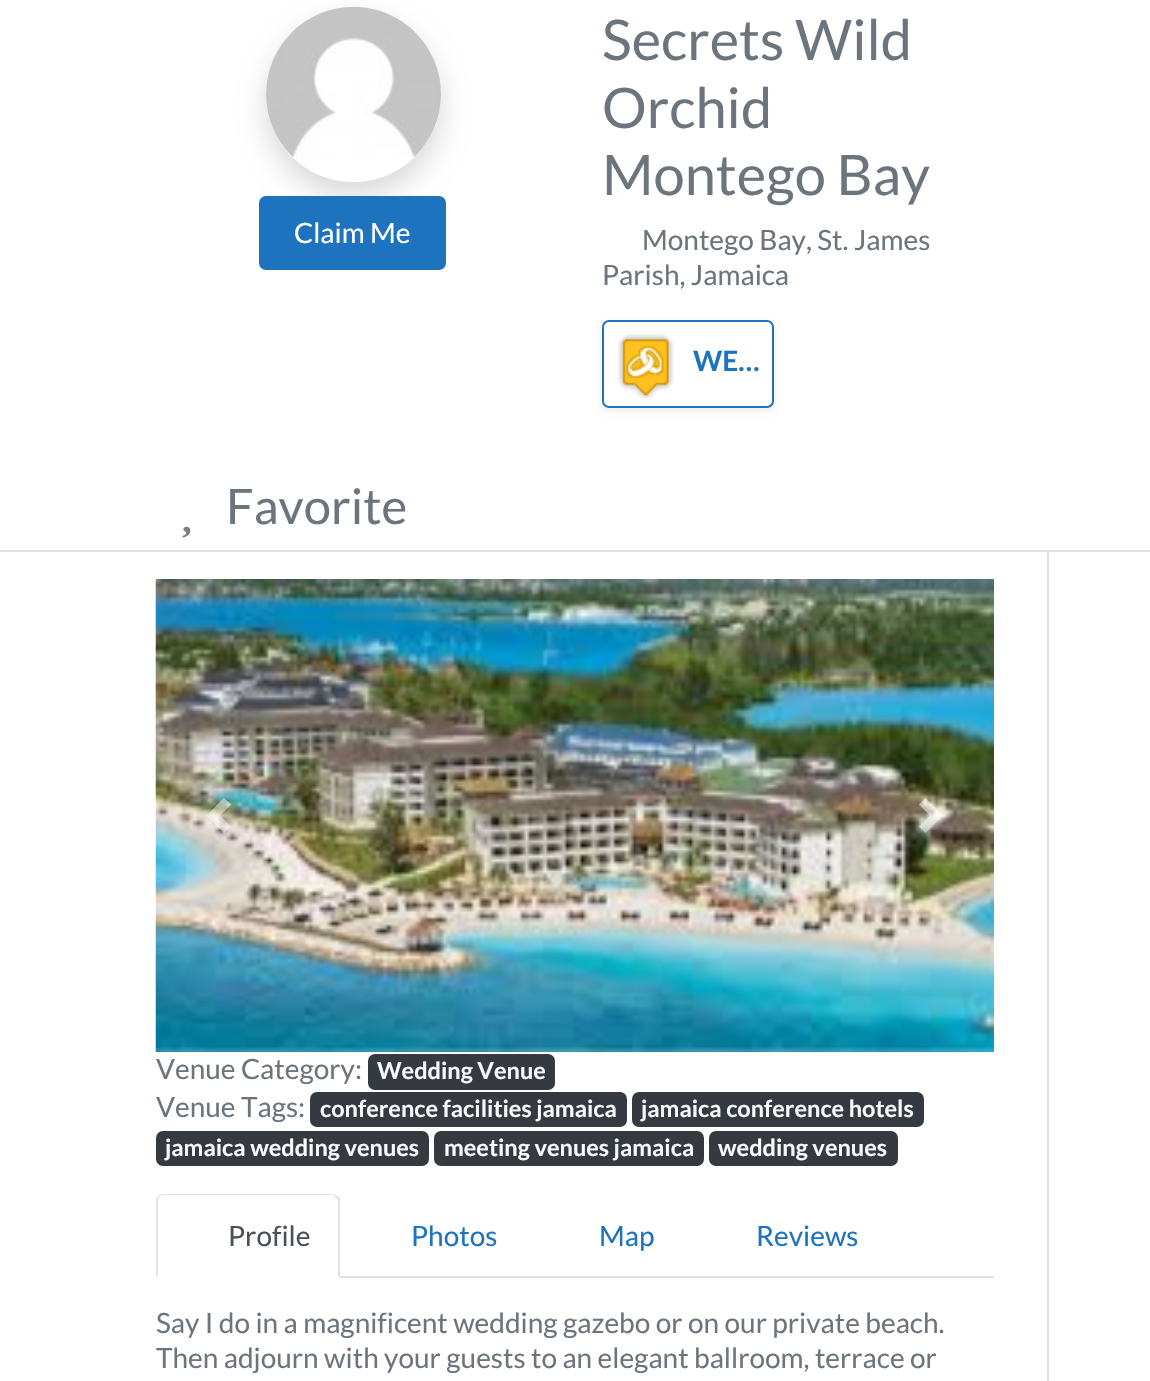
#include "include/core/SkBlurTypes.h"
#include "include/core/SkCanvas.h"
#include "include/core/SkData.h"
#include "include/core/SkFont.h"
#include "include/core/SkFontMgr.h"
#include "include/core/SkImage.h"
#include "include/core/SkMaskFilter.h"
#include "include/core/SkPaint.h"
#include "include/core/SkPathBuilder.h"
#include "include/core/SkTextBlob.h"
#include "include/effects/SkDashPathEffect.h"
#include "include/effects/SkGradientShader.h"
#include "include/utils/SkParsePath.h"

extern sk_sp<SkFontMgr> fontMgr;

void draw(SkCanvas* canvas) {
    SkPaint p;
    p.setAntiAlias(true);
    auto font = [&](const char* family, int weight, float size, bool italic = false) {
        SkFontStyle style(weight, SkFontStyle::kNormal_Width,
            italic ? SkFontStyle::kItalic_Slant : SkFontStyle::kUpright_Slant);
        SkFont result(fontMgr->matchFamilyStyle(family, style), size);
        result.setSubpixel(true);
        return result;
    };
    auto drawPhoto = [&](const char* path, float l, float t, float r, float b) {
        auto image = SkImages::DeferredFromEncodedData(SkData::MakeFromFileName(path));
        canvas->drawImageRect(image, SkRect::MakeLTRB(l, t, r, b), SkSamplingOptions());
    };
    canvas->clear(0xFFFFFFFF);
    p.setColor(0xFFDEE2E6);
    canvas->drawRect(SkRect::MakeLTRB(0, 550, 1150, 552), p);
    canvas->save();
    canvas->clipPath(SkPathBuilder(SkPathFillType::kEvenOdd).moveTo(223, 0).lineTo(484, 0).lineTo(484, 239).lineTo(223, 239).close().moveTo(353.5f, 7).cubicTo(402, 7, 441, 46, 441, 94.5f).cubicTo(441, 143, 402, 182, 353.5f, 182).cubicTo(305, 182, 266, 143, 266, 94.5f).cubicTo(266, 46, 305, 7, 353.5f, 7).close().detach(), true);
    p.setColor(0x26000000);
    p.setMaskFilter(SkMaskFilter::MakeBlur(kNormal_SkBlurStyle, 14));
    canvas->drawRoundRect(SkRect::MakeLTRB(266, 21, 441, 196), 87.5f, 87.5f, p);
    p.setMaskFilter(nullptr);
    canvas->restore();
    drawPhoto("media/1.png", 266, 7, 441, 158);
    p.setColor(0xFF1E73BE);
    canvas->drawRoundRect(SkRect::MakeLTRB(260, 197, 445, 269), 6, 6, p);
    p.setStyle(SkPaint::kStroke_Style);
    p.setStrokeWidth(2);
    canvas->drawRoundRect(SkRect::MakeLTRB(260, 197, 445, 269), 6, 6, p);
    auto font1 = font("Lato", 400, 28);
    p.setStyle(SkPaint::kFill_Style);
    p.setColor(0xFFFFFFFF);
    canvas->drawString("Claim Me", 294, 243, font1, p);
    auto font2 = font("Lato", 400, 56);
    p.setColor(0xFF6C757D);
    {
        const struct { const char* s; float x, y; } items[] = {
            {"Secrets Wild", 602, 60},
            {"Orchid", 602, 128},
            {"Montego Bay", 602, 195},
        };
        for (auto [s, x, y] : items) {
            canvas->drawString(s, x, y, font2, p);
        }
    }
    canvas->drawString("Montego Bay, St. James", 642, 250, font1, p);
    canvas->drawString("Parish, Jamaica", 602, 285, font1, p);
    canvas->save();
    canvas->clipPath(SkPathBuilder(SkPathFillType::kEvenOdd).moveTo(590, 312).lineTo(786, 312).lineTo(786, 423).lineTo(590, 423).close().moveTo(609, 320).lineTo(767, 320).cubicTo(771, 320, 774, 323, 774, 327).lineTo(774, 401).cubicTo(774, 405, 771, 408, 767, 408).lineTo(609, 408).cubicTo(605, 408, 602, 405, 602, 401).lineTo(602, 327).cubicTo(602, 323, 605, 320, 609, 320).close().detach(), true);
    p.setColor(0x12000000);
    p.setMaskFilter(SkMaskFilter::MakeBlur(kNormal_SkBlurStyle, 3.5f));
    canvas->drawRoundRect(SkRect::MakeLTRB(602, 324, 774, 411), 7, 7, p);
    p.setMaskFilter(nullptr);
    canvas->restore();
    p.setStyle(SkPaint::kStroke_Style);
    p.setColor(0xFF1E73BE);
    canvas->drawRoundRect(SkRect::MakeLTRB(603, 321, 773, 407), 6, 6, p);
    drawPhoto("media/2.png", 618, 334, 674, 399);
    auto font3 = font("Lato", 700, 28);
    p.setStyle(SkPaint::kFill_Style);
    canvas->drawString("WE…", 693, 371, font3, p);
    auto font4 = font("Lato", 400, 49);
    p.setColor(0xFF6C757D);
    canvas->drawString("Favorite", 226, 524, font4, p);
    drawPhoto("media/3.png", 182, 526, 191, 538);
    p.setColor(0xFFDEE2E6);
    canvas->drawRect(SkRect::MakeLTRB(1047, 551, 1049, 1381), p);
    drawPhoto("media/4.png", 155, 579, 994, 1052);
    p.setColor(0x80FFFFFF);
    canvas->drawPath(SkPathBuilder().moveTo(224, 798).lineTo(206.5f, 815.5f).lineTo(224, 833).lineTo(231, 826.5f).lineTo(220, 815.5f).lineTo(231, 804.5f).close().detach(), p);
    canvas->drawPath(SkPathBuilder().moveTo(925.5f, 798).lineTo(919, 804.5f).lineTo(930, 815.5f).lineTo(919, 826.5f).lineTo(925.5f, 833).lineTo(943, 815.5f).close().detach(), p);
    p.setColor(0xFF6C757D);
    canvas->drawString("Venue Category:", 156, 1079, font1, p);
    p.setColor(0xFF343A40);
    canvas->drawRoundRect(SkRect::MakeLTRB(368, 1054, 555, 1090), 7, 7, p);
    auto font5 = font("Lato", 700, 23.5f);
    p.setColor(0xFFF8F9FA);
    canvas->drawString("Wedding Venue", 377, 1079, font5, p);
    p.setColor(0xFF6C757D);
    canvas->drawString("Venue Tags:", 156, 1117, font1, p);
    p.setColor(0xFF343A40);
    canvas->drawRoundRect(SkRect::MakeLTRB(310, 1092, 627, 1127), 7, 7, p);
    p.setColor(0xFFF8F9FA);
    canvas->drawString("conference facilities jamaica", 320, 1117, font5, p);
    p.setColor(0xFF343A40);
    canvas->drawRoundRect(SkRect::MakeLTRB(632, 1092, 924, 1127), 7, 7, p);
    p.setColor(0xFFF8F9FA);
    canvas->drawString("jamaica conference hotels", 641, 1117, font5, p);
    p.setColor(0xFF343A40);
    canvas->drawRoundRect(SkRect::MakeLTRB(156, 1131, 429, 1166), 7, 7, p);
    p.setColor(0xFFF8F9FA);
    canvas->drawString("jamaica wedding venues", 165, 1156, font5, p);
    p.setColor(0xFF343A40);
    canvas->drawRoundRect(SkRect::MakeLTRB(434, 1131, 704, 1166), 7, 7, p);
    p.setColor(0xFFF8F9FA);
    canvas->drawString("meeting venues jamaica", 444, 1156, font5, p);
    p.setColor(0xFF343A40);
    canvas->drawRoundRect(SkRect::MakeLTRB(709, 1131, 898, 1166), 7, 7, p);
    p.setColor(0xFFF8F9FA);
    canvas->drawString("wedding venues", 718, 1156, font5, p);
    p.setColor(0xFFDEE2E6);
    canvas->drawRect(SkRect::MakeLTRB(340, 1276, 994, 1278), p);
    canvas->drawPath(SkPathBuilder().moveTo(163, 1194).cubicTo(161, 1194, 159, 1195, 158, 1196).lineTo(159, 1197).cubicTo(160, 1196, 161, 1195, 163, 1195).lineTo(333, 1195).lineTo(336, 1197).lineTo(337, 1196).cubicTo(336, 1195, 334, 1194, 332, 1194).close().detach(), p);
    canvas->drawPath(SkPathBuilder().moveTo(337, 1196).lineTo(340, 1198).lineTo(340, 1278).lineTo(338, 1276).lineTo(338, 1200).lineTo(336, 1197).close().detach(), p);
    p.setColor(0xFFFFFFFF);
    canvas->drawPath(SkPathBuilder().moveTo(340, 1278).lineTo(156, 1278).lineTo(158, 1275).lineTo(158, 1276).lineTo(338, 1276).close().detach(), p);
    p.setColor(0xFFDEE2E6);
    canvas->drawPath(SkPathBuilder().moveTo(158, 1196).lineTo(156, 1199).lineTo(156, 1277).lineTo(158, 1275).lineTo(158, 1200).cubicTo(158, 1199, 158, 1198, 159, 1197).close().detach(), p);
    p.setColor(0xFF495057);
    canvas->drawString("Profile", 228, 1246, font1, p);
    p.setColor(0xFF1E73BE);
    {
        const struct { const char* s; float x, y; } items[] = {
            {"Photos", 411, 1246},
            {"Map", 599, 1246},
            {"Reviews", 756, 1246},
        };
        for (auto [s, x, y] : items) {
            canvas->drawString(s, x, y, font1, p);
        }
    }
    p.setColor(0xFF6C757D);
    canvas->drawString("Say I do in a magnificent wedding gazebo or on our private beach.", 156, 1333, font1, p);
    canvas->drawString("Then adjourn with your guests to an elegant ballroom, terrace or", 156, 1368, font1, p);
}
